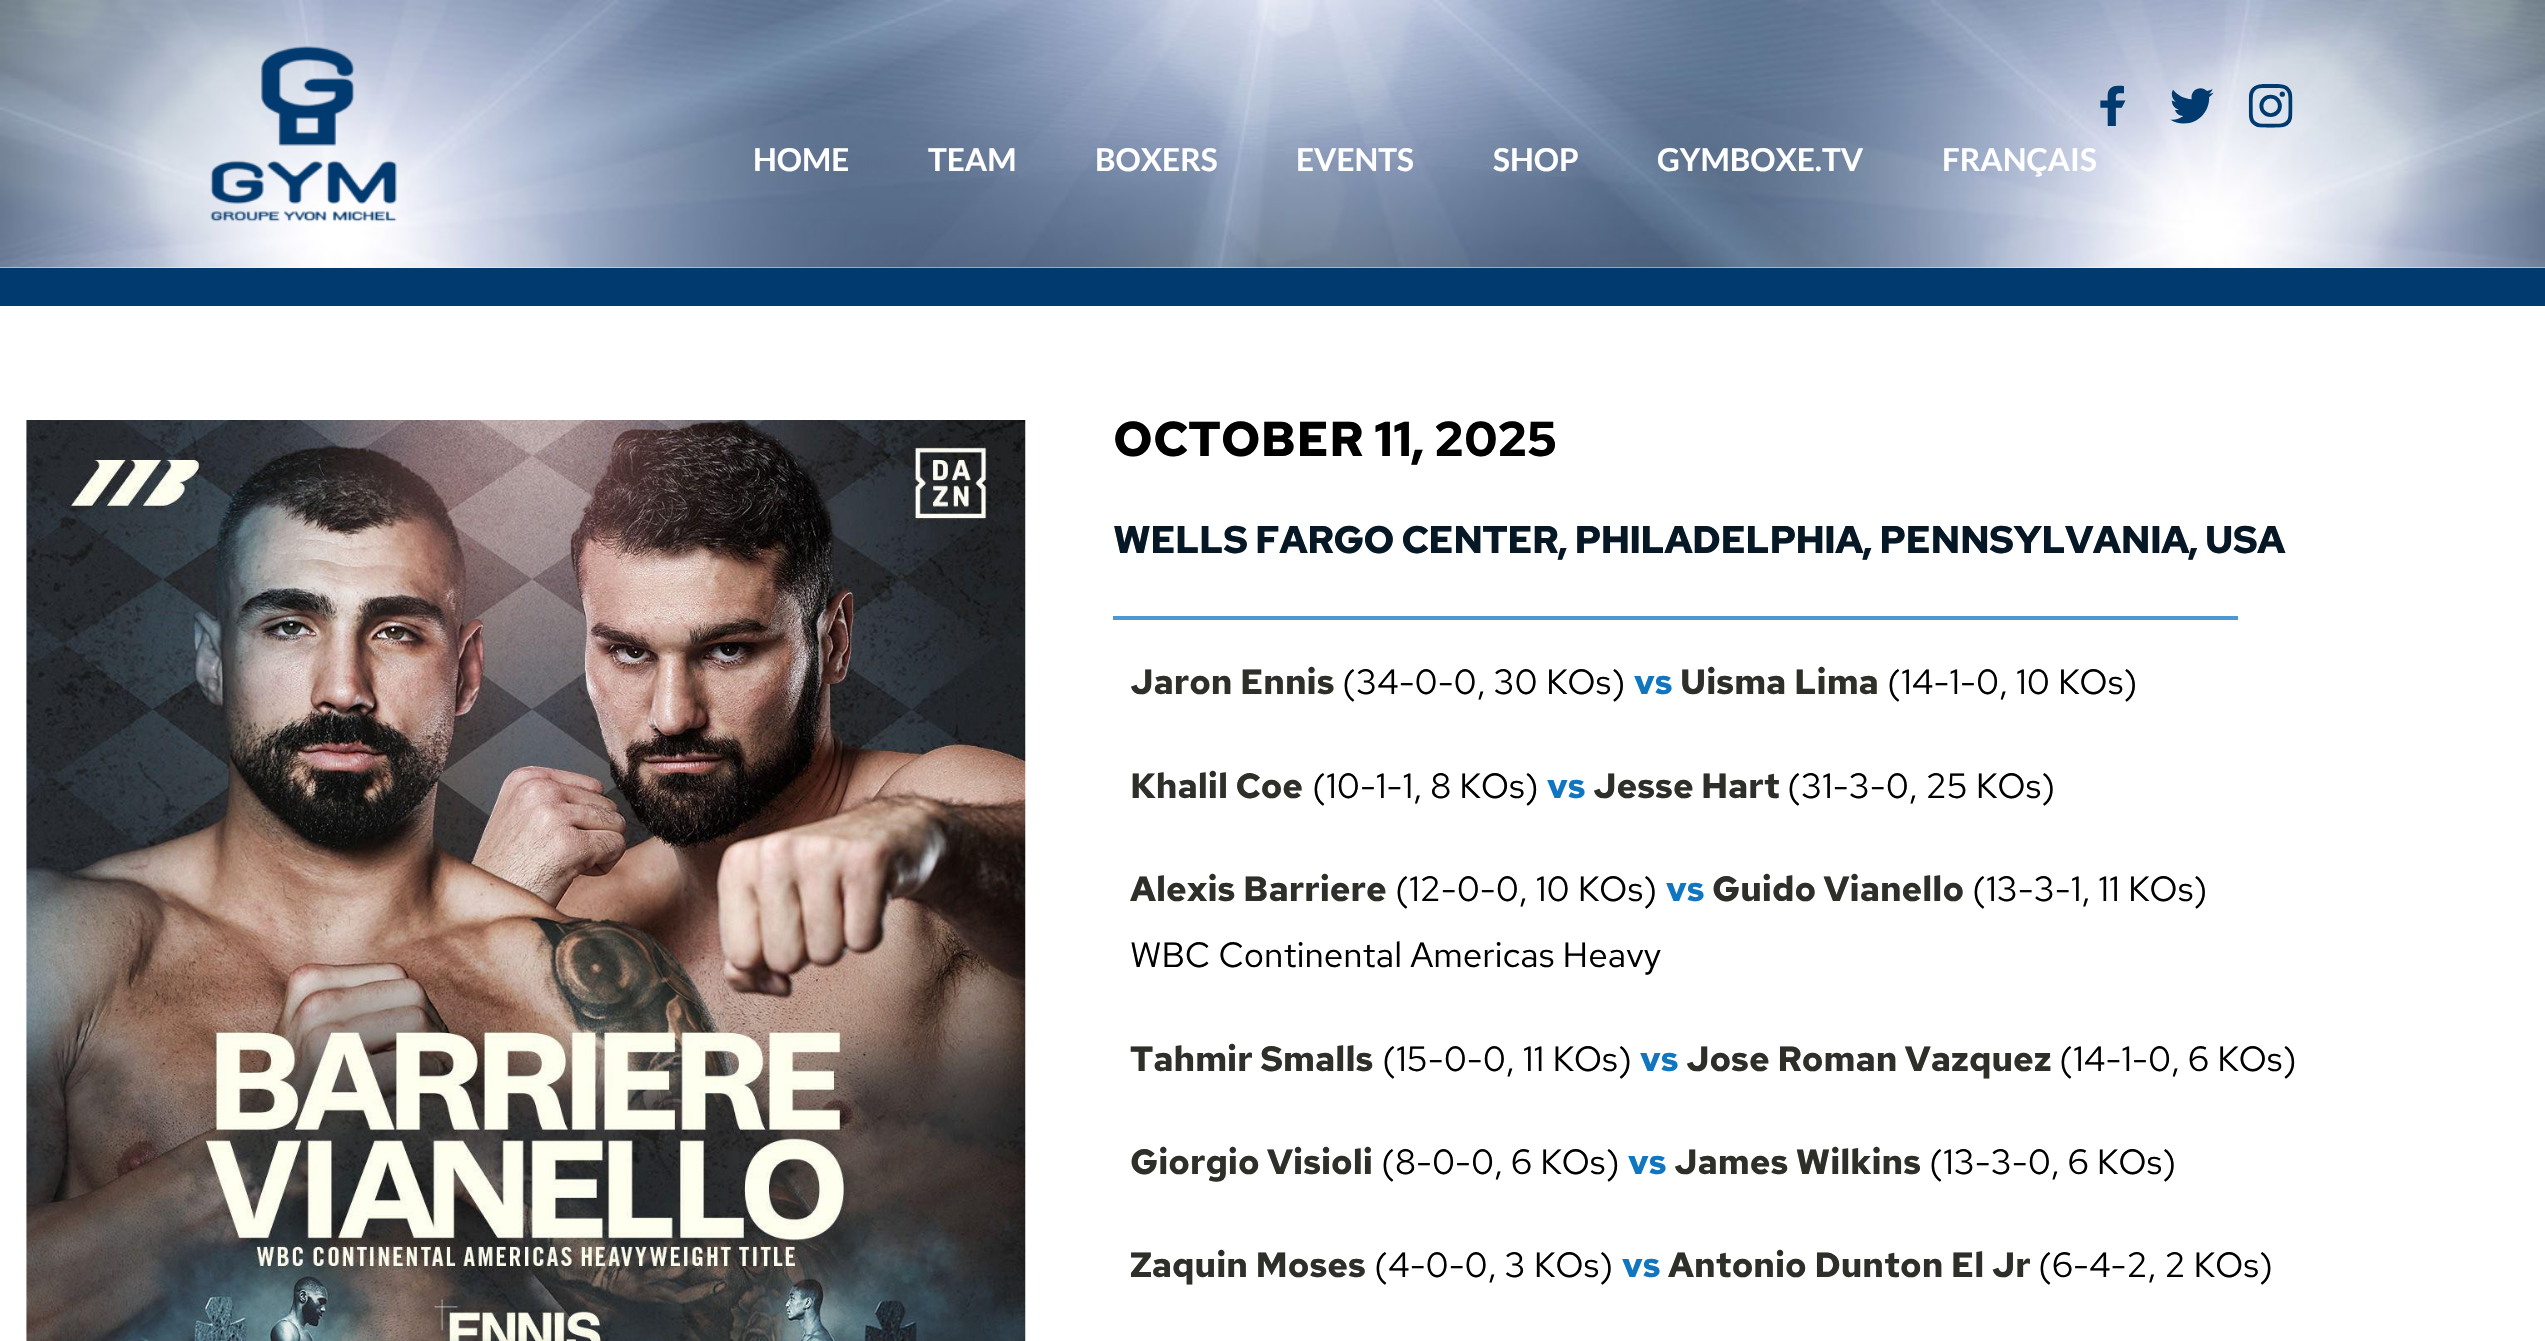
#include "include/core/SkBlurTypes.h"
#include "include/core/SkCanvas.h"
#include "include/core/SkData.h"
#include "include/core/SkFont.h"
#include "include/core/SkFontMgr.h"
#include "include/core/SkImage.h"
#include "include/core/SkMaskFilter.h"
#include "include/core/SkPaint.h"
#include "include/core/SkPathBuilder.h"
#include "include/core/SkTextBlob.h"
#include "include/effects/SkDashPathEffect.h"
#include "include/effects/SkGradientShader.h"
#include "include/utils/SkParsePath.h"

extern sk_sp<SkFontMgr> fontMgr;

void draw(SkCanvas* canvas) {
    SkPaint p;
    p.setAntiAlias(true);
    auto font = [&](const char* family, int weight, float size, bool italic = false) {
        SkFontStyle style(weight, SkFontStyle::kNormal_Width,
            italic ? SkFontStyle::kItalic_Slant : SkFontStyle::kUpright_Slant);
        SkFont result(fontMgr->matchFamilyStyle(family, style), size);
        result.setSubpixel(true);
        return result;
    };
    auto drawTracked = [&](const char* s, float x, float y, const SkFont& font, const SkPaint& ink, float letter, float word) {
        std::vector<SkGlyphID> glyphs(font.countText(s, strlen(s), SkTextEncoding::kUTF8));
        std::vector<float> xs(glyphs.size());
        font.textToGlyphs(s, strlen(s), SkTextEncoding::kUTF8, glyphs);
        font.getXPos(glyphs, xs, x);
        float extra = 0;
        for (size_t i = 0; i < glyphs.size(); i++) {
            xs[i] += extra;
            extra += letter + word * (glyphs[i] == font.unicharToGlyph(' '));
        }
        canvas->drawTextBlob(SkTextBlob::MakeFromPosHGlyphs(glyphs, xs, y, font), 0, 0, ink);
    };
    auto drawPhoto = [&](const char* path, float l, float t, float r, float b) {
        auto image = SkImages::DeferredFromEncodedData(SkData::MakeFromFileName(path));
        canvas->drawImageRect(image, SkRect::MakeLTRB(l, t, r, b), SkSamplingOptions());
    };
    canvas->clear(0xFFFFFFFF);
    drawPhoto("media/1.png", 0, 0, 2545, 268);
    drawPhoto("media/2.png", 210, 46, 397, 222);
    drawPhoto("media/3.png", 2100, 85, 2126, 126);
    drawPhoto("media/4.png", 2170, 88, 2214, 124);
    drawPhoto("media/5.png", 2248, 84, 2293, 128);
    auto font1 = font("Lato", 700, 31.5f);
    p.setColor(0xFFFFFFFF);
    {
        const struct { const char* s; float x, y; } items[] = {
            {"HOME", 753, 171},
            {"TEAM", 928, 171},
            {"BOXERS", 1095, 171},
            {"EVENTS", 1296, 171},
            {"SHOP", 1493, 171},
            {"GYMBOXE.TV", 1657, 171},
            {"FRANÇAIS", 1942, 171},
        };
        for (auto [s, x, y] : items) {
            canvas->drawString(s, x, y, font1, p);
        }
    }
    p.setColor(0xFF013A6F);
    canvas->drawRect(SkRect::MakeLTRB(0, 268, 2545, 306), p);
    drawPhoto("media/6.png", 26, 420, 1026, 1341);
    auto font2 = font("Red Hat Text", 700, 49);
    p.setColor(0xFF000000);
    canvas->drawString("OCTOBER 11, 2025", 1113, 456, font2, p);
    auto font3 = font("Red Hat Text", 700, 38.5f);
    p.setColor(0xFF061726);
    drawTracked("WELLS FARGO CENTER, PHILADELPHIA, PENNSYLVANIA, USA", 1113, 553, font3, p, -0.88f, 0);
    p.setColor(0xFF4D98D1);
    canvas->drawRect(SkRect::MakeLTRB(1113, 616, 2238, 620), p);
    auto font4 = font("Red Hat Text", 700, 35);
    p.setColor(0xFF2F2F2A);
    canvas->drawString("Jaron Ennis", 1130, 694, font4, p);
    auto font5 = font("Red Hat Text", 400, 35);
    p.setColor(0xFF000000);
    canvas->drawString("(34-0-0, 30 KOs)", 1342, 694, font5, p);
    p.setColor(0xFF1176C1);
    canvas->drawString("vs", 1634, 694, font4, p);
    p.setColor(0xFF2F2F2A);
    canvas->drawString("Uisma Lima", 1680, 694, font4, p);
    p.setColor(0xFF000000);
    canvas->drawString("(14-1-0, 10 KOs)", 1887, 694, font5, p);
    p.setColor(0xFF2F2F2A);
    canvas->drawString("Khalil Coe", 1130, 798, font4, p);
    p.setColor(0xFF000000);
    canvas->drawString("(10-1-1, 8 KOs)", 1312, 798, font5, p);
    p.setColor(0xFF1176C1);
    canvas->drawString("vs", 1547, 798, font4, p);
    p.setColor(0xFF2F2F2A);
    canvas->drawString("Jesse Hart", 1593, 798, font4, p);
    p.setColor(0xFF000000);
    canvas->drawString("(31-3-0, 25 KOs)", 1787, 798, font5, p);
    p.setColor(0xFF2F2F2A);
    canvas->drawString("Alexis Barriere", 1130, 901, font4, p);
    p.setColor(0xFF000000);
    canvas->drawString("(12-0-0, 10 KOs)", 1395, 901, font5, p);
    p.setColor(0xFF1176C1);
    canvas->drawString("vs", 1666, 901, font4, p);
    p.setColor(0xFF2F2F2A);
    canvas->drawString("Guido Vianello", 1712, 901, font4, p);
    p.setColor(0xFF000000);
    canvas->drawString("(13-3-1, 11 KOs)", 1972, 901, font5, p);
    canvas->drawString("WBC Continental Americas Heavy", 1130, 967, font5, p);
    p.setColor(0xFF2F2F2A);
    canvas->drawString("Tahmir Smalls", 1130, 1071, font4, p);
    p.setColor(0xFF000000);
    canvas->drawString("(15-0-0, 11 KOs)", 1382, 1071, font5, p);
    p.setColor(0xFF1176C1);
    canvas->drawString("vs", 1640, 1071, font4, p);
    p.setColor(0xFF2F2F2A);
    canvas->drawString("Jose Roman Vazquez", 1686, 1071, font4, p);
    p.setColor(0xFF000000);
    canvas->drawString("(14-1-0, 6 KOs)", 2059, 1071, font5, p);
    p.setColor(0xFF2F2F2A);
    canvas->drawString("Giorgio Visioli", 1130, 1174, font4, p);
    p.setColor(0xFF000000);
    canvas->drawString("(8-0-0, 6 KOs)", 1381, 1174, font5, p);
    p.setColor(0xFF1176C1);
    canvas->drawString("vs", 1628, 1174, font4, p);
    p.setColor(0xFF2F2F2A);
    canvas->drawString("James Wilkins", 1674, 1174, font4, p);
    p.setColor(0xFF000000);
    canvas->drawString("(13-3-0, 6 KOs)", 1929, 1174, font5, p);
    p.setColor(0xFF2F2F2A);
    canvas->drawString("Zaquin Moses", 1130, 1277, font4, p);
    p.setColor(0xFF000000);
    canvas->drawString("(4-0-0, 3 KOs)", 1374, 1277, font5, p);
    p.setColor(0xFF1176C1);
    canvas->drawString("vs", 1622, 1277, font4, p);
    p.setColor(0xFF2F2F2A);
    canvas->drawString("Antonio Dunton El Jr", 1668, 1277, font4, p);
    p.setColor(0xFF000000);
    canvas->drawString("(6-4-2, 2 KOs)", 2038, 1277, font5, p);
}
